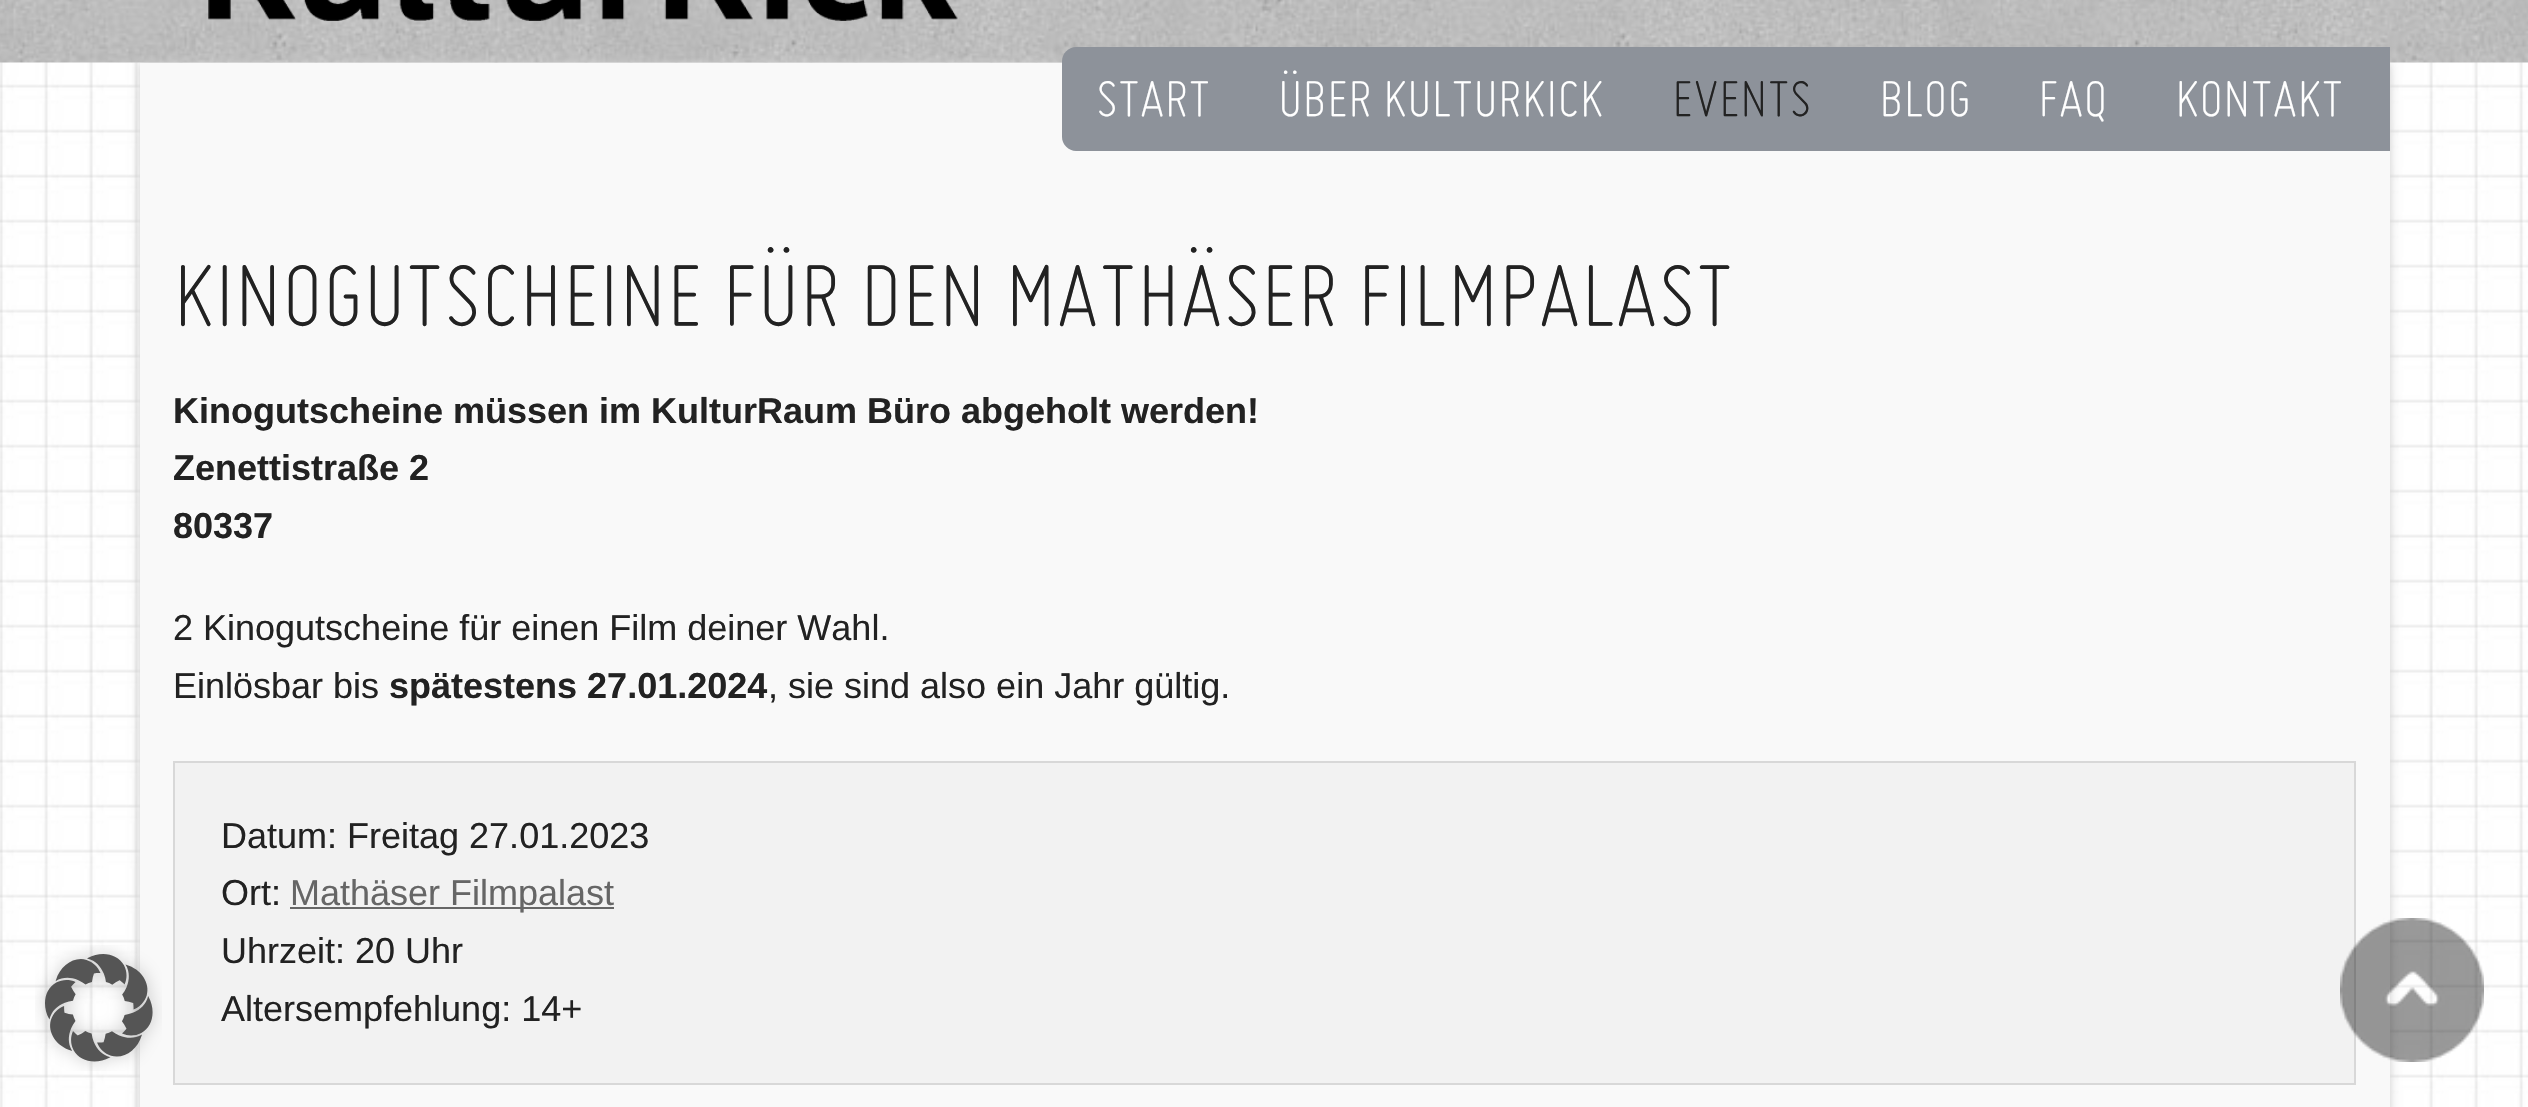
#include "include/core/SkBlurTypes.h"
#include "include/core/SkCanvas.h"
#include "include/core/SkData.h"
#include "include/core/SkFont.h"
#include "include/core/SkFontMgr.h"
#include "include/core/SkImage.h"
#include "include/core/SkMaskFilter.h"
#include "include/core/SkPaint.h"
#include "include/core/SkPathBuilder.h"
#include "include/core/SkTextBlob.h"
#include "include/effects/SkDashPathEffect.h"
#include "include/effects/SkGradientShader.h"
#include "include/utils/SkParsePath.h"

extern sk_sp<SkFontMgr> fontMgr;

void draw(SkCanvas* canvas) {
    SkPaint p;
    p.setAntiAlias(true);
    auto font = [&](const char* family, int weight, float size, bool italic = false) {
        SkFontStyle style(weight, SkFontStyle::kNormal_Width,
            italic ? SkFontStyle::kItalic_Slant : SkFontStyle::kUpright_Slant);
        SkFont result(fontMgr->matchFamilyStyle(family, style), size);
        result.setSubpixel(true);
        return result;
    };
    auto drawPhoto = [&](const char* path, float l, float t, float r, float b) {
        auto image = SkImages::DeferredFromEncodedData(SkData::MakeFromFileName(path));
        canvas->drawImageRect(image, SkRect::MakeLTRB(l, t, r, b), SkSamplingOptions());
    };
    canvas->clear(0xFFFFFFFF);
    drawPhoto("media/1.png", 0, 62, 2528, 1107);
    drawPhoto("media/3.png", 0, 0, 2528, 63);
    p.setColor(0xFFCCCCCC);
    p.setMaskFilter(SkMaskFilter::MakeBlur(kNormal_SkBlurStyle, 4.5f));
    canvas->drawRect(SkRect::MakeLTRB(140, 63, 2390, 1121), p);
    p.setMaskFilter(nullptr);
    p.setColor(0xFFF9F9F9);
    canvas->drawRect(SkRect::MakeLTRB(140, 63, 2390, 1107), p);
    drawPhoto("media/2.png", 35, 945, 162, 1071);
    drawPhoto("media/4.png", 208, 0, 958, 21);
    p.setColor(0xFF8D929A);
    canvas->drawPath(SkPathBuilder().moveTo(1076, 47).lineTo(2390, 47).lineTo(2390, 151).lineTo(1076, 151).cubicTo(1068.5f, 151, 1062, 144.5f, 1062, 137).lineTo(1062, 61).cubicTo(1062, 53.5f, 1068.5f, 47, 1076, 47).close().detach(), p);
    auto font1 = font("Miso", 300, 57.5f, true);
    p.setColor(0xFFFFFFFF);
    canvas->drawString("START", 1096, 117, font1, p);
    canvas->drawString("ÜBER KULTURKICK", 1278, 117, font1, p);
    p.setColor(0xFF222222);
    canvas->drawString("EVENTS", 1672, 117, font1, p);
    p.setColor(0xFFFFFFFF);
    {
        const struct { const char* s; float x, y; } items[] = {
            {"BLOG", 1879, 117},
            {"FAQ", 2038, 117},
            {"KONTAKT", 2175, 117},
        };
        for (auto [s, x, y] : items) {
            canvas->drawString(s, x, y, font1, p);
        }
    }
    auto font2 = font("Miso", 300, 99, true);
    p.setColor(0xFF222222);
    canvas->drawString("KINOGUTSCHEINE FÜR DEN MATHÄSER FILMPALAST", 173, 327, font2, p);
    auto font3 = font("Liberation Sans", 700, 36);
    {
        const struct { const char* s; float x, y; } items[] = {
            {"Kinogutscheine müssen im KulturRaum Büro abgeholt werden!", 173, 423},
            {"Zenettistraße 2", 173, 480},
            {"80337", 173, 538},
        };
        for (auto [s, x, y] : items) {
            canvas->drawString(s, x, y, font3, p);
        }
    }
    auto font4 = font("Liberation Sans", 400, 36);
    canvas->drawString("2 Kinogutscheine für einen Film deiner Wahl.", 173, 640, font4, p);
    canvas->drawString("Einlösbar bis", 173, 698, font4, p);
    canvas->drawString("spätestens 27.01.2024", 389, 698, font3, p);
    canvas->drawString(", sie sind also ein Jahr gültig.", 768, 698, font4, p);
    p.setColor(0xFFF2F2F2);
    canvas->drawRect(SkRect::MakeLTRB(174, 762, 2355, 1084), p);
    p.setStyle(SkPaint::kStroke_Style);
    p.setStrokeWidth(2);
    p.setColor(0xFFD8D8D8);
    canvas->drawRect(SkRect::MakeLTRB(174, 762, 2355, 1084), p);
    p.setStyle(SkPaint::kFill_Style);
    p.setColor(0xFF222222);
    canvas->drawString("Datum: Freitag 27.01.2023", 221, 848, font4, p);
    canvas->drawString("Ort:", 221, 905, font4, p);
    p.setColor(0xFF666666);
    canvas->drawRect(SkRect::MakeLTRB(290, 907, 614, 909), p);
    canvas->drawString("Mathäser Filmpalast", 290, 905, font4, p);
    p.setColor(0xFF222222);
    canvas->drawString("Uhrzeit: 20 Uhr", 221, 963, font4, p);
    canvas->drawString("Altersempfehlung: 14+", 221, 1021, font4, p);
    drawPhoto("media/5.png", 2340, 918, 2484, 1062);
}
